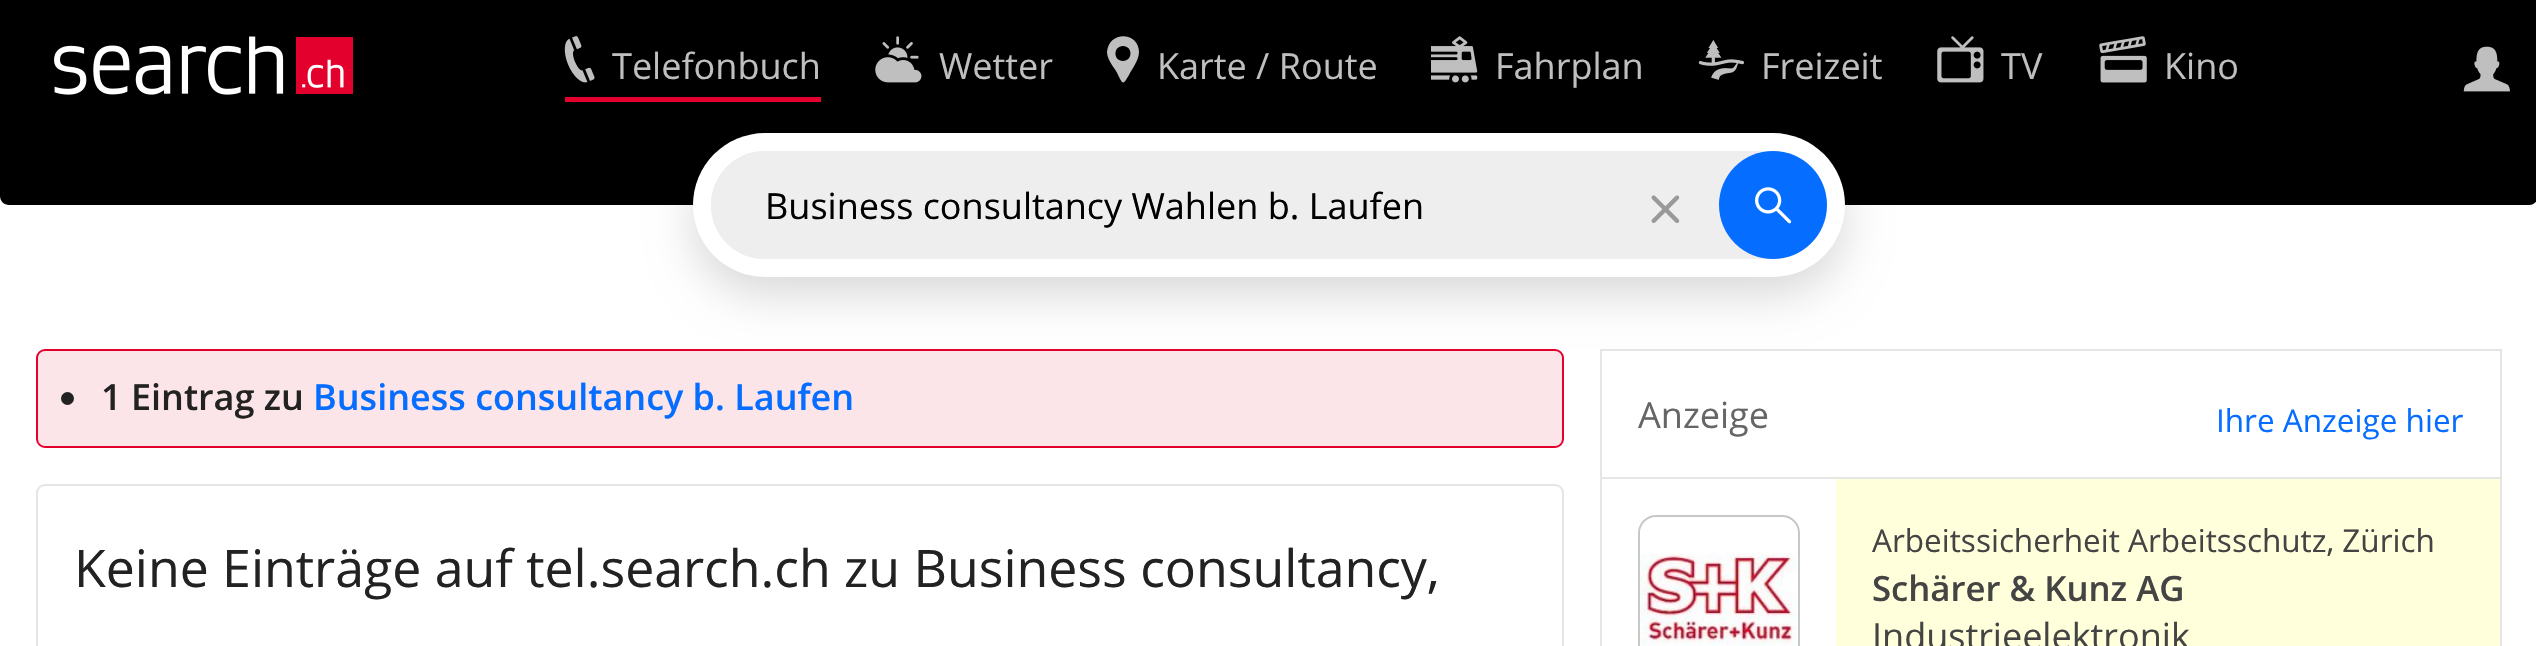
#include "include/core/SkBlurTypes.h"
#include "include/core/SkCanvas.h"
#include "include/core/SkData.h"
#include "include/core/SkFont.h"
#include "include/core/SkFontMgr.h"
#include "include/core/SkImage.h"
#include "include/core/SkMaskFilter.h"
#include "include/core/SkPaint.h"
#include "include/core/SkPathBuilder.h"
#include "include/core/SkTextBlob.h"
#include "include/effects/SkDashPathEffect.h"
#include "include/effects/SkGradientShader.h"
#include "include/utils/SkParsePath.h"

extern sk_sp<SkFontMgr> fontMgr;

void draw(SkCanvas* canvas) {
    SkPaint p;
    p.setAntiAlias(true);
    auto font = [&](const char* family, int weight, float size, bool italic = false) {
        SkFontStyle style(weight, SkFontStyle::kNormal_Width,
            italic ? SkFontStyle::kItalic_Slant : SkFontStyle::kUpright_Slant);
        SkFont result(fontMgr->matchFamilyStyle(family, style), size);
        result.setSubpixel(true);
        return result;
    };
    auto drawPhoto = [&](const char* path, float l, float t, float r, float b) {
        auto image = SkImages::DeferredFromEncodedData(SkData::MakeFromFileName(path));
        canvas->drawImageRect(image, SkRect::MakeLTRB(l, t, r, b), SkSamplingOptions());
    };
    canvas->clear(0xFFFFFFFF);
    p.setColor(0xFF000000);
    canvas->drawRect(SkRect::MakeLTRB(0, 0, 2536, 133), p);
    drawPhoto("media/1.png", 54, 36, 353, 95);
    p.setColor(0xFFE4002C);
    canvas->drawRect(SkRect::MakeLTRB(565, 97, 821, 102), p);
    drawPhoto("media/2.png", 564, 36, 595, 83);
    auto font1 = font("Open Sans", 400, 36);
    p.setColor(0xFFBFBFBF);
    canvas->drawString("Telefonbuch", 612, 79, font1, p);
    drawPhoto("media/3.png", 875, 36, 922, 83);
    canvas->drawString("Wetter", 939, 79, font1, p);
    canvas->drawPath(SkPathBuilder().moveTo(1139, 52).cubicTo(1139, 32, 1109, 30, 1107, 52).cubicTo(1107, 59, 1113, 66, 1116, 71).cubicTo(1123, 84, 1122, 87, 1129, 75).cubicTo(1132, 69, 1139, 60, 1139, 52).close().moveTo(1123, 61).cubicTo(1113, 61, 1113, 46, 1123, 46).cubicTo(1133, 46, 1133, 61, 1123, 61).close().detach(), p);
    canvas->drawString("Karte / Route", 1157, 79, font1, p);
    drawPhoto("media/4.png", 1431, 36, 1478, 83);
    canvas->drawString("Fahrplan", 1495, 79, font1, p);
    drawPhoto("media/5.png", 1698, 40, 1745, 80);
    canvas->drawString("Freizeit", 1761, 79, font1, p);
    drawPhoto("media/6.png", 1937, 36, 1984, 83);
    canvas->drawString("TV", 2001, 79, font1, p);
    drawPhoto("media/7.png", 2099, 36, 2147, 83);
    canvas->drawString("Kino", 2164, 79, font1, p);
    drawPhoto("media/8.png", 2463, 46, 2510, 92);
    p.setColor(0xFF000000);
    canvas->drawPath(SkPathBuilder().moveTo(0, 133).lineTo(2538, 133).lineTo(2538, 196).cubicTo(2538, 201, 2534, 205, 2529, 205).lineTo(9, 205).cubicTo(4, 205, 0, 201, 0, 196).close().detach(), p);
    p.setColor(0xFFFCE5E9);
    canvas->drawRoundRect(SkRect::MakeLTRB(37, 350, 1563, 447), 8, 8, p);
    p.setStyle(SkPaint::kStroke_Style);
    p.setStrokeWidth(2);
    p.setColor(0xFFE4002C);
    canvas->drawRoundRect(SkRect::MakeLTRB(37, 350, 1563, 447), 8, 8, p);
    p.setStyle(SkPaint::kFill_Style);
    p.setColor(0xFFFCE5E9);
    canvas->drawRoundRect(SkRect::MakeLTRB(38, 351, 1562, 446), 9, 9, p);
    p.setStyle(SkPaint::kStroke_Style);
    p.setColor(0xFFE5E5E5);
    canvas->drawRect(SkRect::MakeLTRB(1601, 350, 2501, 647), p);
    p.setStyle(SkPaint::kFill_Style);
    p.setColor(0x26000000);
    p.setMaskFilter(SkMaskFilter::MakeBlur(kNormal_SkBlurStyle, 22.5f));
    canvas->drawRoundRect(SkRect::MakeLTRB(693, 151, 1845, 295), 72, 72, p);
    p.setMaskFilter(nullptr);
    p.setColor(0xFFFFFFFF);
    canvas->drawRoundRect(SkRect::MakeLTRB(693, 133, 1845, 277), 72, 72, p);
    p.setColor(0xFFEEEEEE);
    canvas->drawRoundRect(SkRect::MakeLTRB(711, 151, 1827, 259), 54, 54, p);
    canvas->drawRoundRect(SkRect::MakeLTRB(711, 151, 1611, 259), 54, 54, p);
    p.setColor(0xFF000000);
    canvas->drawString("Business consultancy Wahlen b. Laufen", 765, 219, font1, p);
    drawPhoto("media/9.png", 1651, 195, 1680, 223);
    p.setColor(0xFF056DFF);
    canvas->drawCircle(1773, 205, 54, p);
    drawPhoto("media/10.png", 1755, 187, 1792, 224);
    p.setColor(0xFF222222);
    canvas->drawCircle(67.5f, 398.5f, 6.5f, p);
    auto font2 = font("Open Sans", 600, 36);
    canvas->drawString("1 Eintrag zu", 101, 410, font2, p);
    p.setColor(0xFF056DFF);
    canvas->drawString("Business consultancy b. Laufen", 313, 410, font2, p);
    p.setStyle(SkPaint::kStroke_Style);
    p.setColor(0xFFE5E5E5);
    canvas->drawRoundRect(SkRect::MakeLTRB(37, 485, 1563, 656), 8, 8, p);
    auto font3 = font("Open Sans", 400, 51.75f);
    p.setStyle(SkPaint::kFill_Style);
    p.setColor(0xFF222222);
    canvas->drawString("Keine Einträge auf tel.search.ch zu Business consultancy,", 74, 587, font3, p);
    p.setColor(0xFF666666);
    canvas->drawString("Anzeige", 1638, 428, font1, p);
    auto font4 = font("Open Sans", 400, 31.5f);
    p.setColor(0xFF056DFF);
    canvas->drawString("Ihre Anzeige hier", 2216, 432, font4, p);
    p.setColor(0xFFE6E6E6);
    canvas->drawRect(SkRect::MakeLTRB(1602, 477, 2500, 479), p);
    p.setStyle(SkPaint::kStroke_Style);
    p.setColor(0xFFC8C8C8);
    canvas->drawRoundRect(SkRect::MakeLTRB(1639, 516, 1799, 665), 17, 17, p);
    drawPhoto("media/11.png", 1640, 520, 1798, 646);
    p.setStyle(SkPaint::kFill_Style);
    p.setColor(0xFFFFFFDB);
    canvas->drawRect(SkRect::MakeLTRB(1836, 479, 2500, 646), p);
    p.setColor(0xFF444444);
    canvas->drawString("Arbeitssicherheit Arbeitsschutz, Zürich", 1872, 552, font4, p);
    auto font5 = font("Open Sans", 600, 34.75f);
    canvas->drawString("Schärer & Kunz AG", 1872, 601, font5, p);
    canvas->drawString("Industrieelektronik", 1872, 649, font1, p);
}
